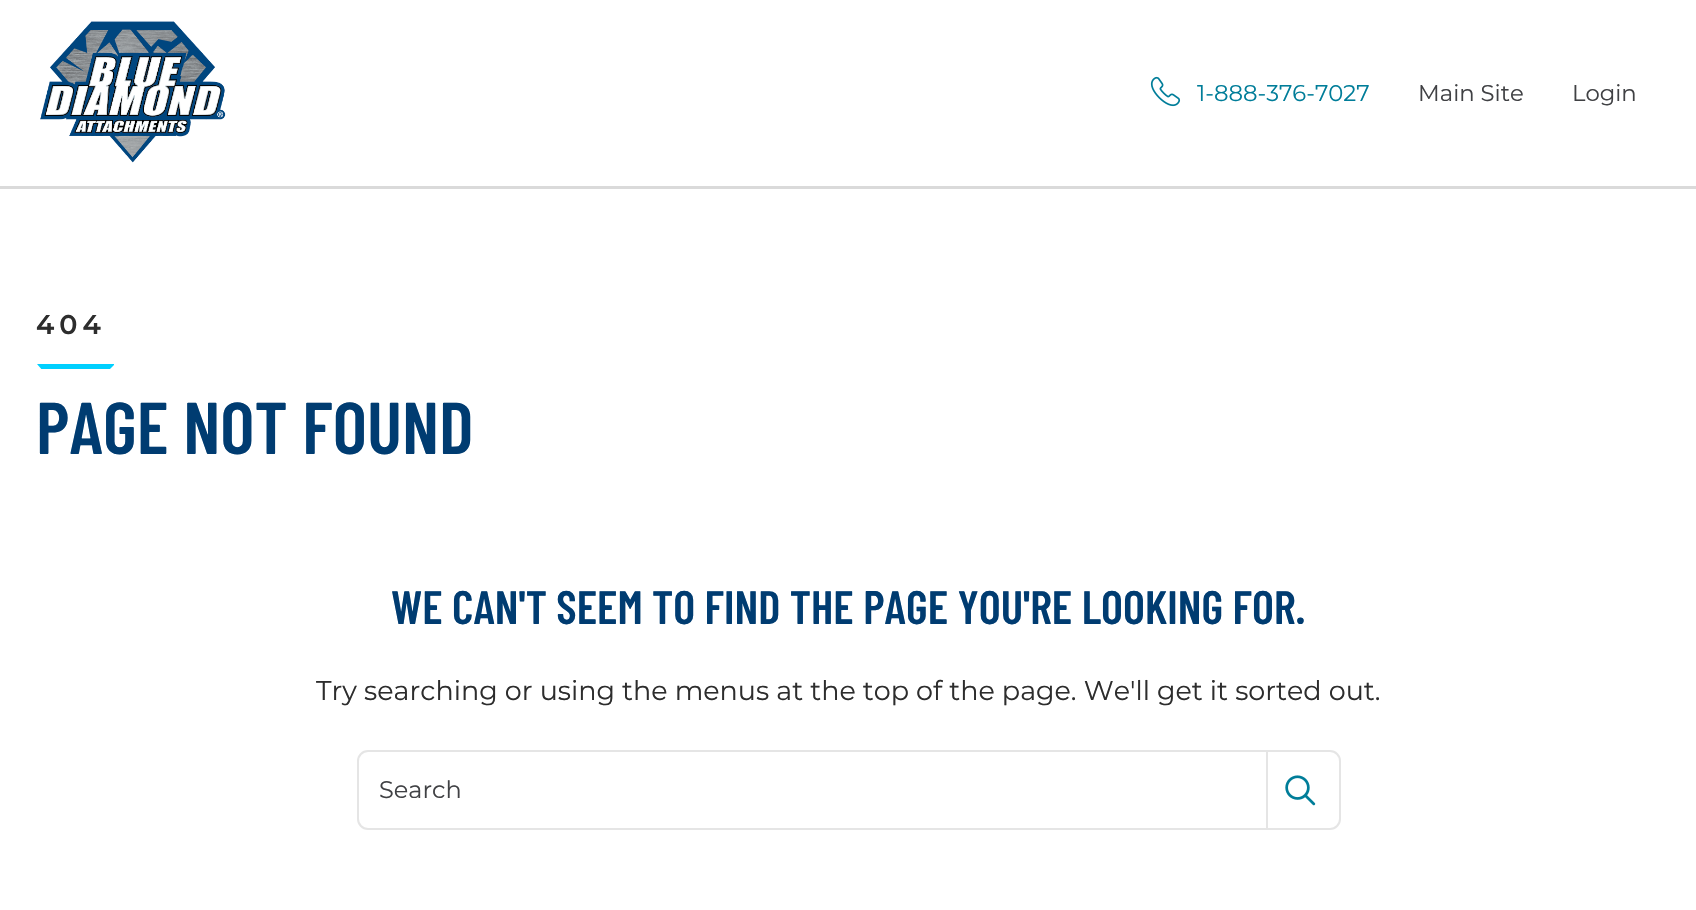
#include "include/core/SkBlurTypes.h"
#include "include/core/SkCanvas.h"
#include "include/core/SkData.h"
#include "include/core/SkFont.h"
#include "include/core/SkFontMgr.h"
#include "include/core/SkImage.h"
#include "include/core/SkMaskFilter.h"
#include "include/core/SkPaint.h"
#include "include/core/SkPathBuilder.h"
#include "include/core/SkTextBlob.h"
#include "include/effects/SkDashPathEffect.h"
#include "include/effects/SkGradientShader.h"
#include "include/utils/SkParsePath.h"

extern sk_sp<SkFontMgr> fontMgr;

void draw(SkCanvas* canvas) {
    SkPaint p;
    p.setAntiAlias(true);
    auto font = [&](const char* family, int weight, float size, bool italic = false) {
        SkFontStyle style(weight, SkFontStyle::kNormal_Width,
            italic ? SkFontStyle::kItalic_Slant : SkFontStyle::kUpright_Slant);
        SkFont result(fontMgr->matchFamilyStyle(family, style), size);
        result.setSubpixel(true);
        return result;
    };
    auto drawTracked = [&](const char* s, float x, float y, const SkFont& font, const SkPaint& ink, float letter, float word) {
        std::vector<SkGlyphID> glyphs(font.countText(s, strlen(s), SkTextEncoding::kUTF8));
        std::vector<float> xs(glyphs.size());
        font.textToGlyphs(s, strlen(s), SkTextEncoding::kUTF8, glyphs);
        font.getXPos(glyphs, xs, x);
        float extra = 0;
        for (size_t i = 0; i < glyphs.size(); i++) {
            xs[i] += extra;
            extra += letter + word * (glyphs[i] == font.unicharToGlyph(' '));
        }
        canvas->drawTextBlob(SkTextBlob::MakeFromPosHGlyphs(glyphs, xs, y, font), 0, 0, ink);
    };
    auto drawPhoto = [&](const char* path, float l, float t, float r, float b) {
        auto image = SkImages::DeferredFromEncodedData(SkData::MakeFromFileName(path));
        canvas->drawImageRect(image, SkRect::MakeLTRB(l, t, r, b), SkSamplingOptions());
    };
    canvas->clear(0xFFFFFFFF);
    p.setColor(0xFFDADADA);
    canvas->drawRect(SkRect::MakeLTRB(0, 186, 1696, 189), p);
    drawPhoto("media/1.png", 40, 21, 226, 163);
    drawPhoto("media/2.png", 1150, 76, 1181, 107);
    auto font1 = font("Montserrat", 400, 22.75f);
    p.setColor(0xFF007D99);
    canvas->drawString("1-888-376-7027", 1197, 101, font1, p);
    p.setColor(0xFF404144);
    canvas->drawString("Main Site", 1418, 101, font1, p);
    canvas->drawString("Login", 1572, 101, font1, p);
    auto font2 = font("Montserrat", 600, 27);
    p.setColor(0xFF2D2D2D);
    drawTracked("404", 36, 334, font2, p, 5, 0);
    canvas->save();
    canvas->clipRect(SkRect::MakeLTRB(36, 363, 114, 369));
    p.setColor(0xFF00D0FF);
    canvas->drawPath(SkPathBuilder().moveTo(37, 364).lineTo(115, 364).lineTo(108, 371).lineTo(43, 371).close().detach(), p);
    canvas->restore();
    auto font3 = font("Barlow Condensed", 600, 73.25f);
    p.setColor(0xFF003C71);
    canvas->drawString("PAGE NOT FOUND", 36, 454, font3, p);
    auto font4 = font("Barlow Condensed", 600, 46.9f);
    canvas->drawString("WE CAN'T SEEM TO FIND THE PAGE YOU'RE LOOKING FOR.", 391, 624, font4, p);
    auto font5 = font("Montserrat", 400, 27);
    p.setColor(0xFF2D2D2D);
    canvas->drawString("Try searching or using the menus at the top of the page. We'll get it sorted out.", 316, 700, font5, p);
    p.setStyle(SkPaint::kStroke_Style);
    p.setStrokeWidth(2);
    p.setColor(0xFFE5E5E5);
    canvas->drawRoundRect(SkRect::MakeLTRB(358, 751, 1340, 829), 10, 10, p);
    auto font6 = font("Montserrat", 400, 24);
    p.setStyle(SkPaint::kFill_Style);
    p.setColor(0xFF404144);
    canvas->drawString("Search", 379, 798, font6, p);
    drawPhoto("media/3.png", 1285, 775, 1316, 806);
    p.setColor(0xFFE5E5E5);
    canvas->drawRect(SkRect::MakeLTRB(1266, 752, 1268, 828), p);
}
